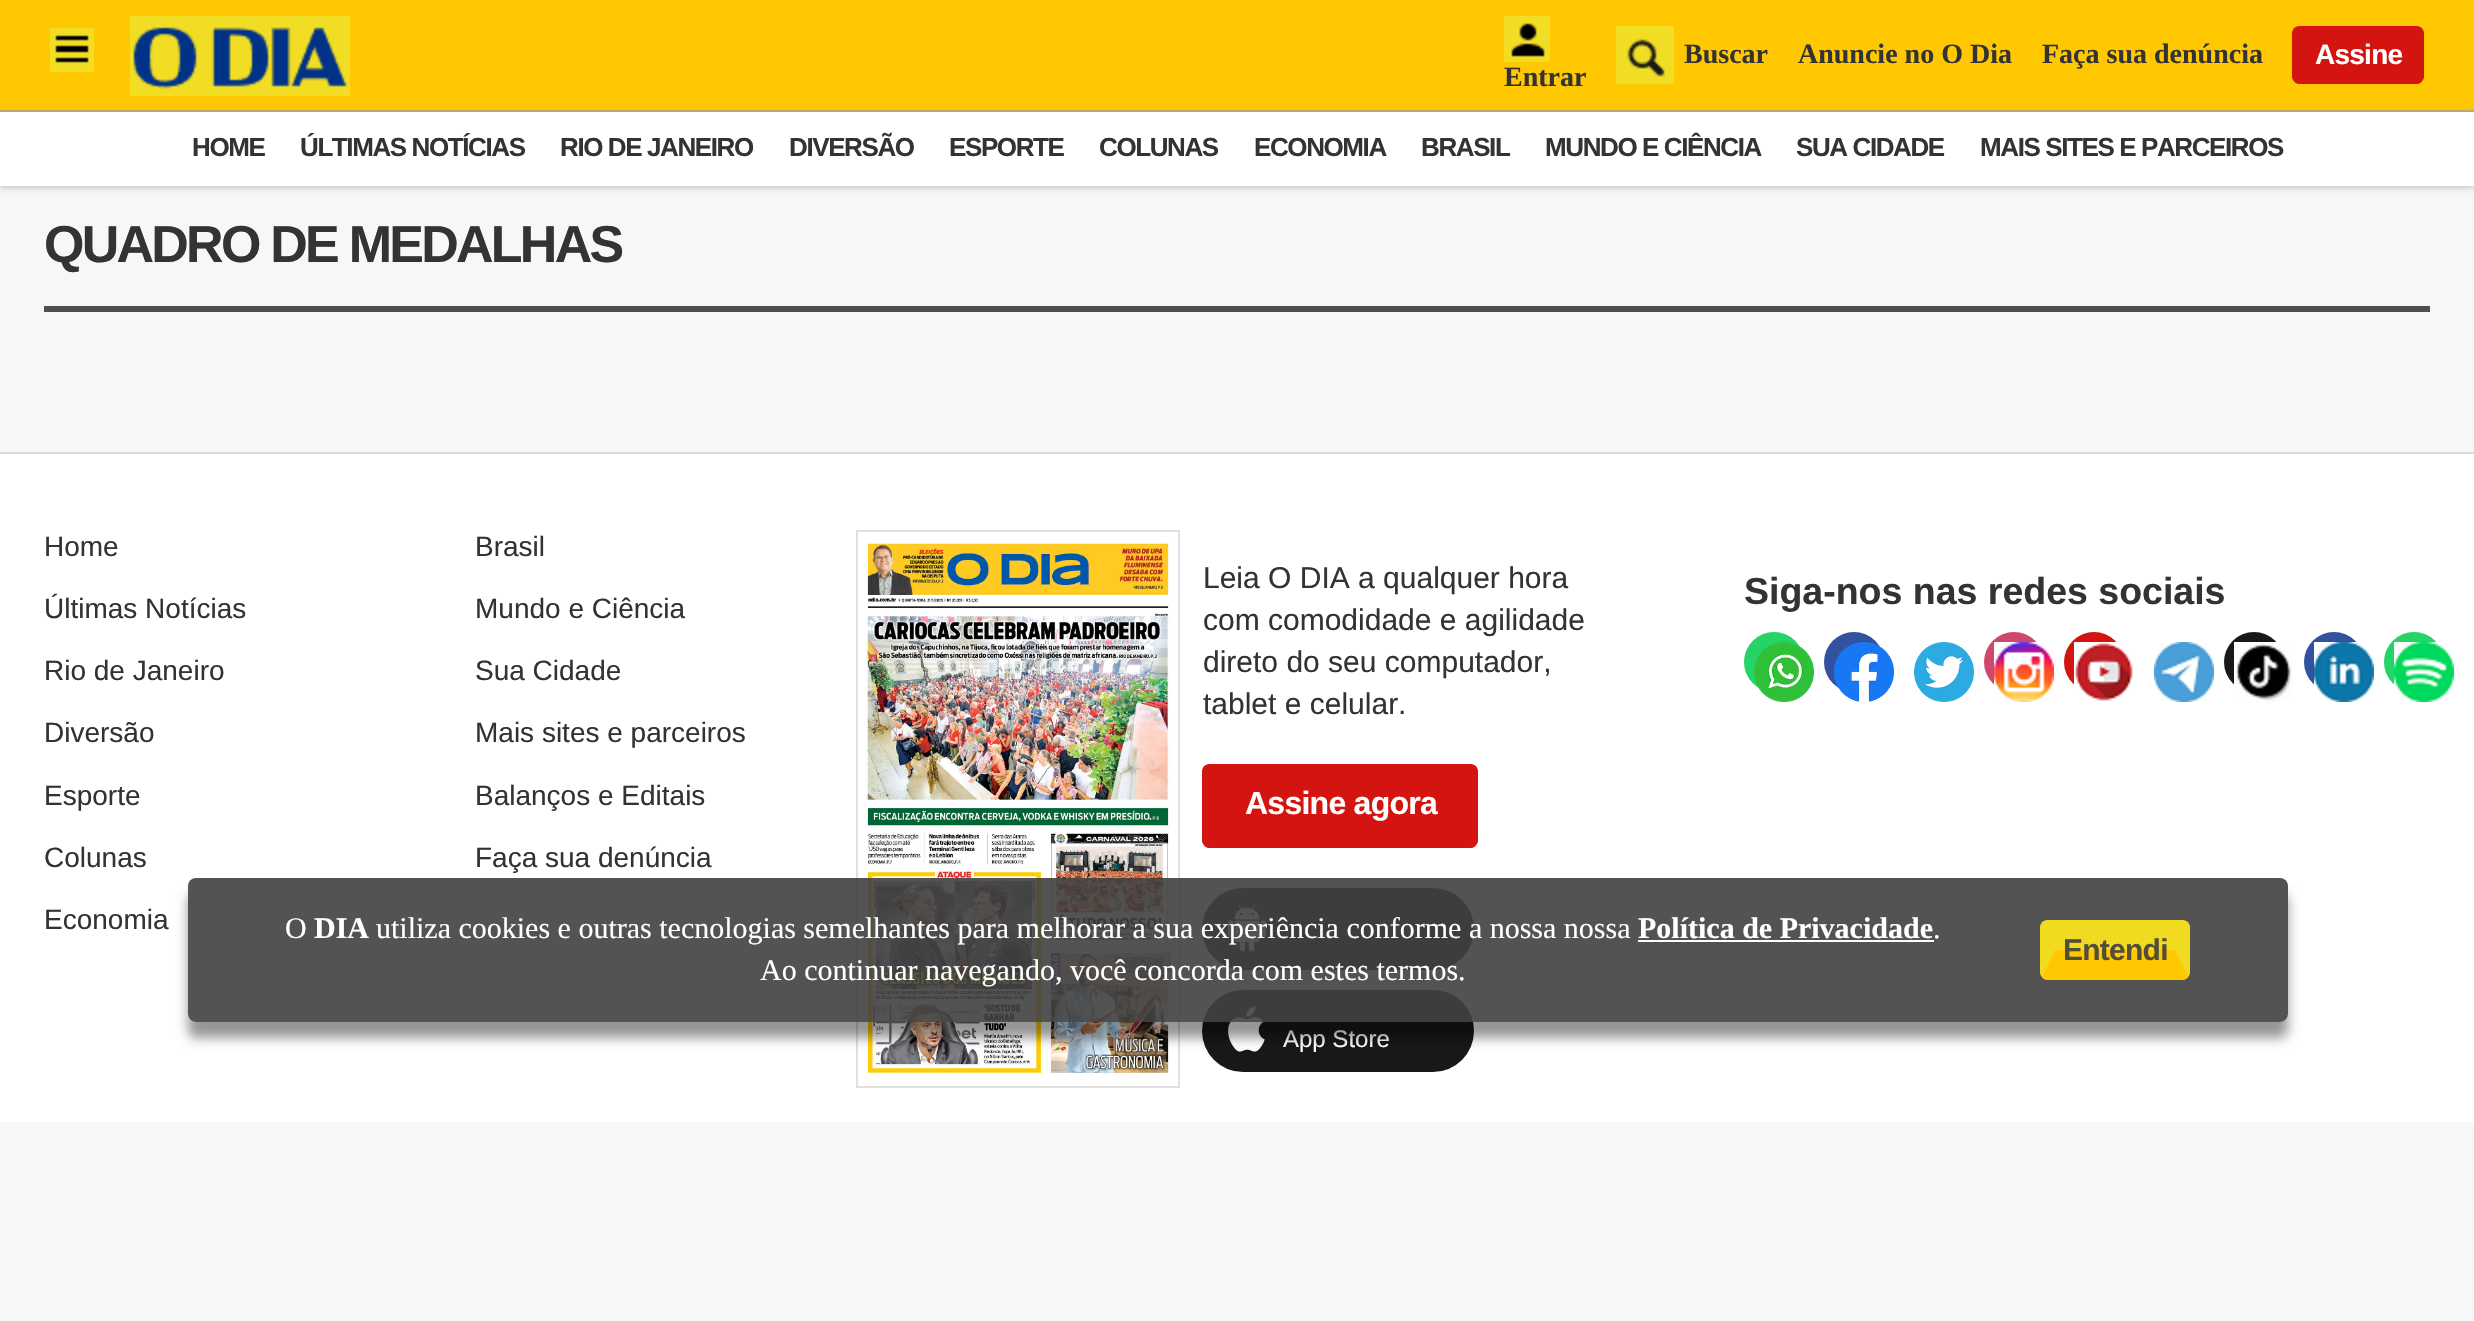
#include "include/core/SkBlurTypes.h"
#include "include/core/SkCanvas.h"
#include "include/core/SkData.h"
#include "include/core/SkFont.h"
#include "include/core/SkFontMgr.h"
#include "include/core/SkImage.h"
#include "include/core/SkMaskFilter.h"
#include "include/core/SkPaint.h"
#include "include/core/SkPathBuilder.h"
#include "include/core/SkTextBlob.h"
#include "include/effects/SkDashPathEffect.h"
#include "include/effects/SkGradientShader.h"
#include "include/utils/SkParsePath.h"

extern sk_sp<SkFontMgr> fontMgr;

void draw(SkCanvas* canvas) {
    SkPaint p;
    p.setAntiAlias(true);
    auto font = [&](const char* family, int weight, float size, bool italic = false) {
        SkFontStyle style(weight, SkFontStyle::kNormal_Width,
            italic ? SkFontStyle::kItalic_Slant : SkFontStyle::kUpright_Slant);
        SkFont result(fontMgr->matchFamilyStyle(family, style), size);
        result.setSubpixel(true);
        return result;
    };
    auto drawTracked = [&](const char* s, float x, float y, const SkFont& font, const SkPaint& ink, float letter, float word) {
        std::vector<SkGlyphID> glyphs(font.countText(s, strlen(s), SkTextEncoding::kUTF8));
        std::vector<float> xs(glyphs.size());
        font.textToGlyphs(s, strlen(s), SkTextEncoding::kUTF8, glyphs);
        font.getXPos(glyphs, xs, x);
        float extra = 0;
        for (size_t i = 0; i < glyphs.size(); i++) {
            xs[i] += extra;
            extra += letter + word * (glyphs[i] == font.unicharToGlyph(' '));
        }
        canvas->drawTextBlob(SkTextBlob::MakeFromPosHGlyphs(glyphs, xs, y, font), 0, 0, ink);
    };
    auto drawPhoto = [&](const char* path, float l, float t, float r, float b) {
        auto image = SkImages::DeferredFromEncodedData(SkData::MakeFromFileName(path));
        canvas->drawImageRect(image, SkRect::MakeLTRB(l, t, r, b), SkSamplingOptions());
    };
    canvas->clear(0xFFF7F7F7);
    p.setColor(0xFFFFC801);
    canvas->drawRect(SkRect::MakeLTRB(0, 0, 2474, 110), p);
    p.setColor(0xFFBDAB79);
    canvas->drawRect(SkRect::MakeLTRB(0, 110, 2474, 112), p);
    drawPhoto("media/1.png", 50, 28, 94, 72);
    drawPhoto("media/2.png", 130, 16, 350, 96);
    drawPhoto("media/3.png", 1616, 26, 1674, 84);
    auto font1 = font("Liberation Serif", 700, 28);
    p.setColor(0xFF333333);
    {
        const struct { const char* s; float x, y; } items[] = {
            {"Buscar", 1684, 63},
            {"Anuncie no O Dia", 1798, 63},
            {"Faça sua denúncia", 2042, 63},
        };
        for (auto [s, x, y] : items) {
            canvas->drawString(s, x, y, font1, p);
        }
    }
    p.setColor(0xFFD31410);
    canvas->drawRoundRect(SkRect::MakeLTRB(2292, 26, 2424, 84), 8, 8, p);
    p.setColor(0xE6D31410);
    canvas->drawPath(SkPathBuilder().moveTo(2300, 26).cubicTo(2298, 26, 2296, 27, 2294, 28).lineTo(2296, 30).lineTo(2299, 28).lineTo(2417, 28).lineTo(2420, 30).lineTo(2422, 28).cubicTo(2420, 27, 2418, 26, 2416, 26).close().detach(), p);
    canvas->drawPath(SkPathBuilder().moveTo(2424, 76).lineTo(2424, 34).cubicTo(2424, 32, 2423, 30, 2422, 28).lineTo(2420, 30).lineTo(2422, 33).lineTo(2422, 76).lineTo(2421, 78).lineTo(2422, 81).cubicTo(2423, 79, 2424, 78, 2424, 76).close().detach(), p);
    p.setColor(0xFFD31410);
    canvas->drawPath(SkPathBuilder().moveTo(2300, 84).lineTo(2416, 84).cubicTo(2418, 84, 2421, 83, 2422, 81).lineTo(2421, 78).cubicTo(2420, 79, 2418, 80, 2416, 80).lineTo(2300, 80).cubicTo(2298, 80, 2296, 79, 2295, 78).lineTo(2294, 81).cubicTo(2295, 83, 2298, 84, 2300, 84).close().detach(), p);
    p.setColor(0xE6D31410);
    canvas->drawPath(SkPathBuilder().moveTo(2292, 34).lineTo(2292, 76).cubicTo(2292, 78, 2293, 79, 2294, 81).lineTo(2295, 78).lineTo(2294, 76).lineTo(2294, 33).lineTo(2296, 30).lineTo(2294, 28).cubicTo(2293, 30, 2292, 32, 2292, 34).close().detach(), p);
    auto font2 = font("Liberation Sans", 700, 28);
    p.setColor(0xFFFFFFFF);
    drawTracked("Assine", 2315, 64, font2, p, -0.75f, 0);
    drawPhoto("media/4.png", 1504, 16, 1550, 62);
    p.setColor(0xFF333333);
    canvas->drawString("Entrar", 1504, 86, font1, p);
    p.setColor(0x33000000);
    p.setMaskFilter(SkMaskFilter::MakeBlur(kNormal_SkBlurStyle, 3));
    canvas->drawRect(SkRect::MakeLTRB(0, 114, 2474, 188), p);
    p.setMaskFilter(nullptr);
    p.setColor(0xFFFFFFFF);
    canvas->drawRect(SkRect::MakeLTRB(0, 112, 2474, 186), p);
    auto font3 = font("Liberation Sans", 700, 26);
    p.setColor(0xFF333333);
    {
        const struct { const char* s; float x, y; } items[] = {
            {"HOME", 192, 156},
            {"ÚLTIMAS NOTÍCIAS", 300, 156},
            {"RIO DE JANEIRO", 560, 156},
            {"DIVERSÃO", 789, 156},
            {"ESPORTE", 949, 156},
            {"COLUNAS", 1099, 156},
            {"ECONOMIA", 1254, 156},
            {"BRASIL", 1421, 156},
            {"MUNDO E CIÊNCIA", 1545, 156},
            {"SUA CIDADE", 1796, 156},
            {"MAIS SITES E PARCEIROS", 1980, 156},
        };
        for (auto [s, x, y] : items) {
            drawTracked(s, x, y, font3, p, -1.4f, 0);
        }
    }
    auto font4 = font("Liberation Sans", 700, 52);
    drawTracked("QUADRO DE MEDALHAS", 44, 262, font4, p, -2.75f, 0);
    {
        const struct { float l, t, r, b; SkColor color; } items[] = {
            {44, 306, 2430, 312, 0xFF4F4F4F},
            {0, 454, 2474, 1122, 0xFFFFFFFF},
            {0, 452, 2474, 454, 0xFFD9D9D9},
        };
        for (auto [l, t, r, b, color] : items) {
            p.setColor(color);
            canvas->drawRect(SkRect::MakeLTRB(l, t, r, b), p);
        }
    }
    auto font5 = font("Liberation Sans", 400, 28);
    p.setColor(0xFF333333);
    {
        const struct { const char* s; float x, y; } items[] = {
            {"Home", 44, 556},
            {"Brasil", 475, 556},
            {"Últimas Notícias", 44, 618},
            {"Mundo e Ciência", 475, 618},
            {"Rio de Janeiro", 44, 680},
            {"Sua Cidade", 475, 680},
            {"Diversão", 44, 742},
            {"Mais sites e parceiros", 475, 742},
            {"Esporte", 44, 805},
            {"Balanços e Editais", 475, 805},
            {"Colunas", 44, 867},
            {"Faça sua denúncia", 475, 867},
            {"Economia", 44, 929},
        };
        for (auto [s, x, y] : items) {
            canvas->drawString(s, x, y, font5, p);
        }
    }
    p.setStyle(SkPaint::kStroke_Style);
    p.setStrokeWidth(2);
    p.setColor(0xFFDFDFDF);
    canvas->drawRect(SkRect::MakeLTRB(857, 531, 1179, 1087), p);
    drawPhoto("media/5.png", 865, 542, 1172, 1073);
    auto font6 = font("Liberation Sans", 400, 30);
    p.setStyle(SkPaint::kFill_Style);
    p.setColor(0xFF333333);
    {
        const struct { const char* s; float x, y; } items[] = {
            {"Leia O DIA a qualquer hora", 1203, 588},
            {"com comodidade e agilidade", 1203, 630},
            {"direto do seu computador,", 1203, 672},
            {"tablet e celular.", 1203, 714},
        };
        for (auto [s, x, y] : items) {
            canvas->drawString(s, x, y, font6, p);
        }
    }
    p.setColor(0xFFD31410);
    canvas->drawRoundRect(SkRect::MakeLTRB(1202, 764, 1478, 848), 8, 8, p);
    p.setColor(0xE6D31410);
    canvas->drawPath(SkPathBuilder().moveTo(1210, 764).cubicTo(1208, 764, 1206, 765, 1204, 766).lineTo(1206, 768).cubicTo(1207, 767, 1208, 766, 1210, 766).lineTo(1470, 766).cubicTo(1472, 766, 1473, 767, 1474, 768).lineTo(1476, 766).cubicTo(1474, 765, 1472, 764, 1470, 764).close().detach(), p);
    canvas->drawPath(SkPathBuilder().moveTo(1478, 840).lineTo(1478, 772).cubicTo(1478, 770, 1477, 768, 1476, 766).lineTo(1474, 768).lineTo(1476, 771).lineTo(1476, 840).lineTo(1475, 842).lineTo(1476, 845).cubicTo(1477, 843, 1478, 842, 1478, 840).close().detach(), p);
    p.setColor(0xFFD31410);
    canvas->drawPath(SkPathBuilder().moveTo(1210, 848).lineTo(1470, 848).cubicTo(1472, 848, 1475, 847, 1476, 845).lineTo(1475, 842).cubicTo(1474, 843, 1472, 844, 1470, 844).lineTo(1210, 844).cubicTo(1208, 844, 1206, 843, 1205, 842).lineTo(1204, 845).cubicTo(1205, 847, 1208, 848, 1210, 848).close().detach(), p);
    p.setColor(0xE6D31410);
    canvas->drawPath(SkPathBuilder().moveTo(1202, 772).lineTo(1202, 840).cubicTo(1202, 842, 1203, 843, 1204, 845).lineTo(1205, 842).lineTo(1204, 840).lineTo(1204, 771).lineTo(1206, 768).lineTo(1204, 766).cubicTo(1203, 768, 1202, 770, 1202, 772).close().detach(), p);
    auto font7 = font("Liberation Sans", 700, 32);
    p.setColor(0xFFFFFFFF);
    drawTracked("Assine agora", 1245, 814, font7, p, -0.75f, 0);
    p.setColor(0xFF181818);
    canvas->drawRoundRect(SkRect::MakeLTRB(1202, 888, 1474, 970), 41, 41, p);
    drawPhoto("media/6.png", 1228, 905, 1266, 952);
    canvas->drawRoundRect(SkRect::MakeLTRB(1202, 990, 1474, 1072), 41, 41, p);
    drawPhoto("media/7.png", 1228, 1006, 1265, 1052);
    auto font8 = font("Liberation Sans", 400, 24);
    p.setColor(0xFFFFFFFF);
    canvas->drawString("App Store", 1283, 1047, font8, p);
    auto font9 = font("Liberation Sans", 700, 37.5f);
    p.setColor(0xFF333333);
    canvas->drawString("Siga-nos nas redes sociais", 1744, 604, font9, p);
    p.setColor(0xFF25D366);
    canvas->drawCircle(1774, 662, 30, p);
    drawPhoto("media/8.png", 1754, 642, 1814, 702);
    p.setColor(0xFF32529F);
    canvas->drawCircle(1854, 662, 30, p);
    drawPhoto("media/9.png", 1834, 642, 1894, 702);
    drawPhoto("media/10.png", 1914, 642, 1974, 702);
    p.setColor(0xFFCD486B);
    canvas->drawCircle(2014, 662, 30, p);
    drawPhoto("media/11.png", 1994, 642, 2054, 702);
    p.setColor(0xFFD31410);
    canvas->drawCircle(2094, 662, 30, p);
    drawPhoto("media/12.png", 2074, 642, 2133, 701);
    drawPhoto("media/13.png", 2154, 642, 2214, 702);
    p.setColor(0xFF181818);
    canvas->drawCircle(2254, 662, 30, p);
    drawPhoto("media/14.png", 2234, 642, 2294, 702);
    p.setColor(0xFF32529F);
    canvas->drawCircle(2334, 662, 30, p);
    drawPhoto("media/15.png", 2314, 642, 2374, 702);
    p.setColor(0xFF25D366);
    canvas->drawCircle(2414, 662, 30, p);
    drawPhoto("media/16.png", 2394, 642, 2454, 702);
    canvas->save();
    canvas->clipPath(SkPathBuilder(SkPathFillType::kEvenOdd).moveTo(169, 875).lineTo(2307, 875).lineTo(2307, 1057).lineTo(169, 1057).close().moveTo(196, 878).lineTo(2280, 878).cubicTo(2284.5f, 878, 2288, 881.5f, 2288, 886).lineTo(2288, 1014).cubicTo(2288, 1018.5f, 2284.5f, 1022, 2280, 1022).lineTo(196, 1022).cubicTo(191.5f, 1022, 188, 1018.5f, 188, 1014).lineTo(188, 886).cubicTo(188, 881.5f, 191.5f, 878, 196, 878).close().detach(), true);
    p.setColor(0x69000000);
    p.setMaskFilter(SkMaskFilter::MakeBlur(kNormal_SkBlurStyle, 6));
    canvas->drawRoundRect(SkRect::MakeLTRB(188, 894, 2288, 1038), 8, 8, p);
    p.setMaskFilter(nullptr);
    canvas->restore();
    p.setColor(0xE6404040);
    canvas->drawRoundRect(SkRect::MakeLTRB(188, 878, 2288, 1022), 8, 8, p);
    auto font10 = font("Liberation Serif", 400, 30);
    p.setColor(0xFFFFFFFF);
    canvas->drawString("O", 285, 938, font10, p);
    auto font11 = font("Liberation Serif", 700, 30);
    canvas->drawString("DIA", 314, 938, font11, p);
    canvas->drawString("utiliza cookies e outras tecnologias semelhantes para melhorar a sua experiência conforme a nossa nossa", 376, 938, font10, p);
    canvas->drawString("Política de Privacidade", 1638, 938, font11, p);
    canvas->drawRect(SkRect::MakeLTRB(1638, 940, 1934, 942), p);
    canvas->drawString(".", 1933, 938, font10, p);
    canvas->drawString("Ao continuar navegando, você concorda com estes termos.", 760, 980, font10, p);
    p.setColor(0xFFFFC801);
    canvas->drawRoundRect(SkRect::MakeLTRB(2040, 920, 2190, 980), 8, 8, p);
    p.setColor(0xE6F0DD24);
    canvas->drawPath(SkPathBuilder().moveTo(2048, 920).lineTo(2182, 920).cubicTo(2184, 920, 2186, 921, 2188, 922).lineTo(2160, 950).lineTo(2070, 950).lineTo(2042, 922).cubicTo(2044, 921, 2046, 920, 2048, 920).close().detach(), p);
    canvas->drawPath(SkPathBuilder().moveTo(2188, 922).lineTo(2160, 950).lineTo(2175, 950).lineTo(2188, 977).cubicTo(2189, 975, 2190, 974, 2190, 972).lineTo(2190, 928).cubicTo(2190, 926, 2189, 924, 2188, 922).close().detach(), p);
    p.setColor(0xFFFFC801);
    canvas->drawPath(SkPathBuilder().moveTo(2188, 977).lineTo(2175, 950).lineTo(2055, 950).lineTo(2042, 977).cubicTo(2043, 979, 2046, 980, 2048, 980).lineTo(2182, 980).cubicTo(2184, 980, 2187, 979, 2188, 977).close().detach(), p);
    p.setColor(0xE6F0DD24);
    canvas->drawPath(SkPathBuilder().moveTo(2042, 977).lineTo(2055, 950).lineTo(2070, 950).lineTo(2042, 922).cubicTo(2041, 924, 2040, 926, 2040, 928).lineTo(2040, 972).cubicTo(2040, 974, 2041, 975, 2042, 977).close().detach(), p);
    auto font12 = font("Liberation Sans", 700, 30);
    p.setColor(0xFF524E3B);
    drawTracked("Entendi", 2063, 960, font12, p, -0.75f, 0);
}
